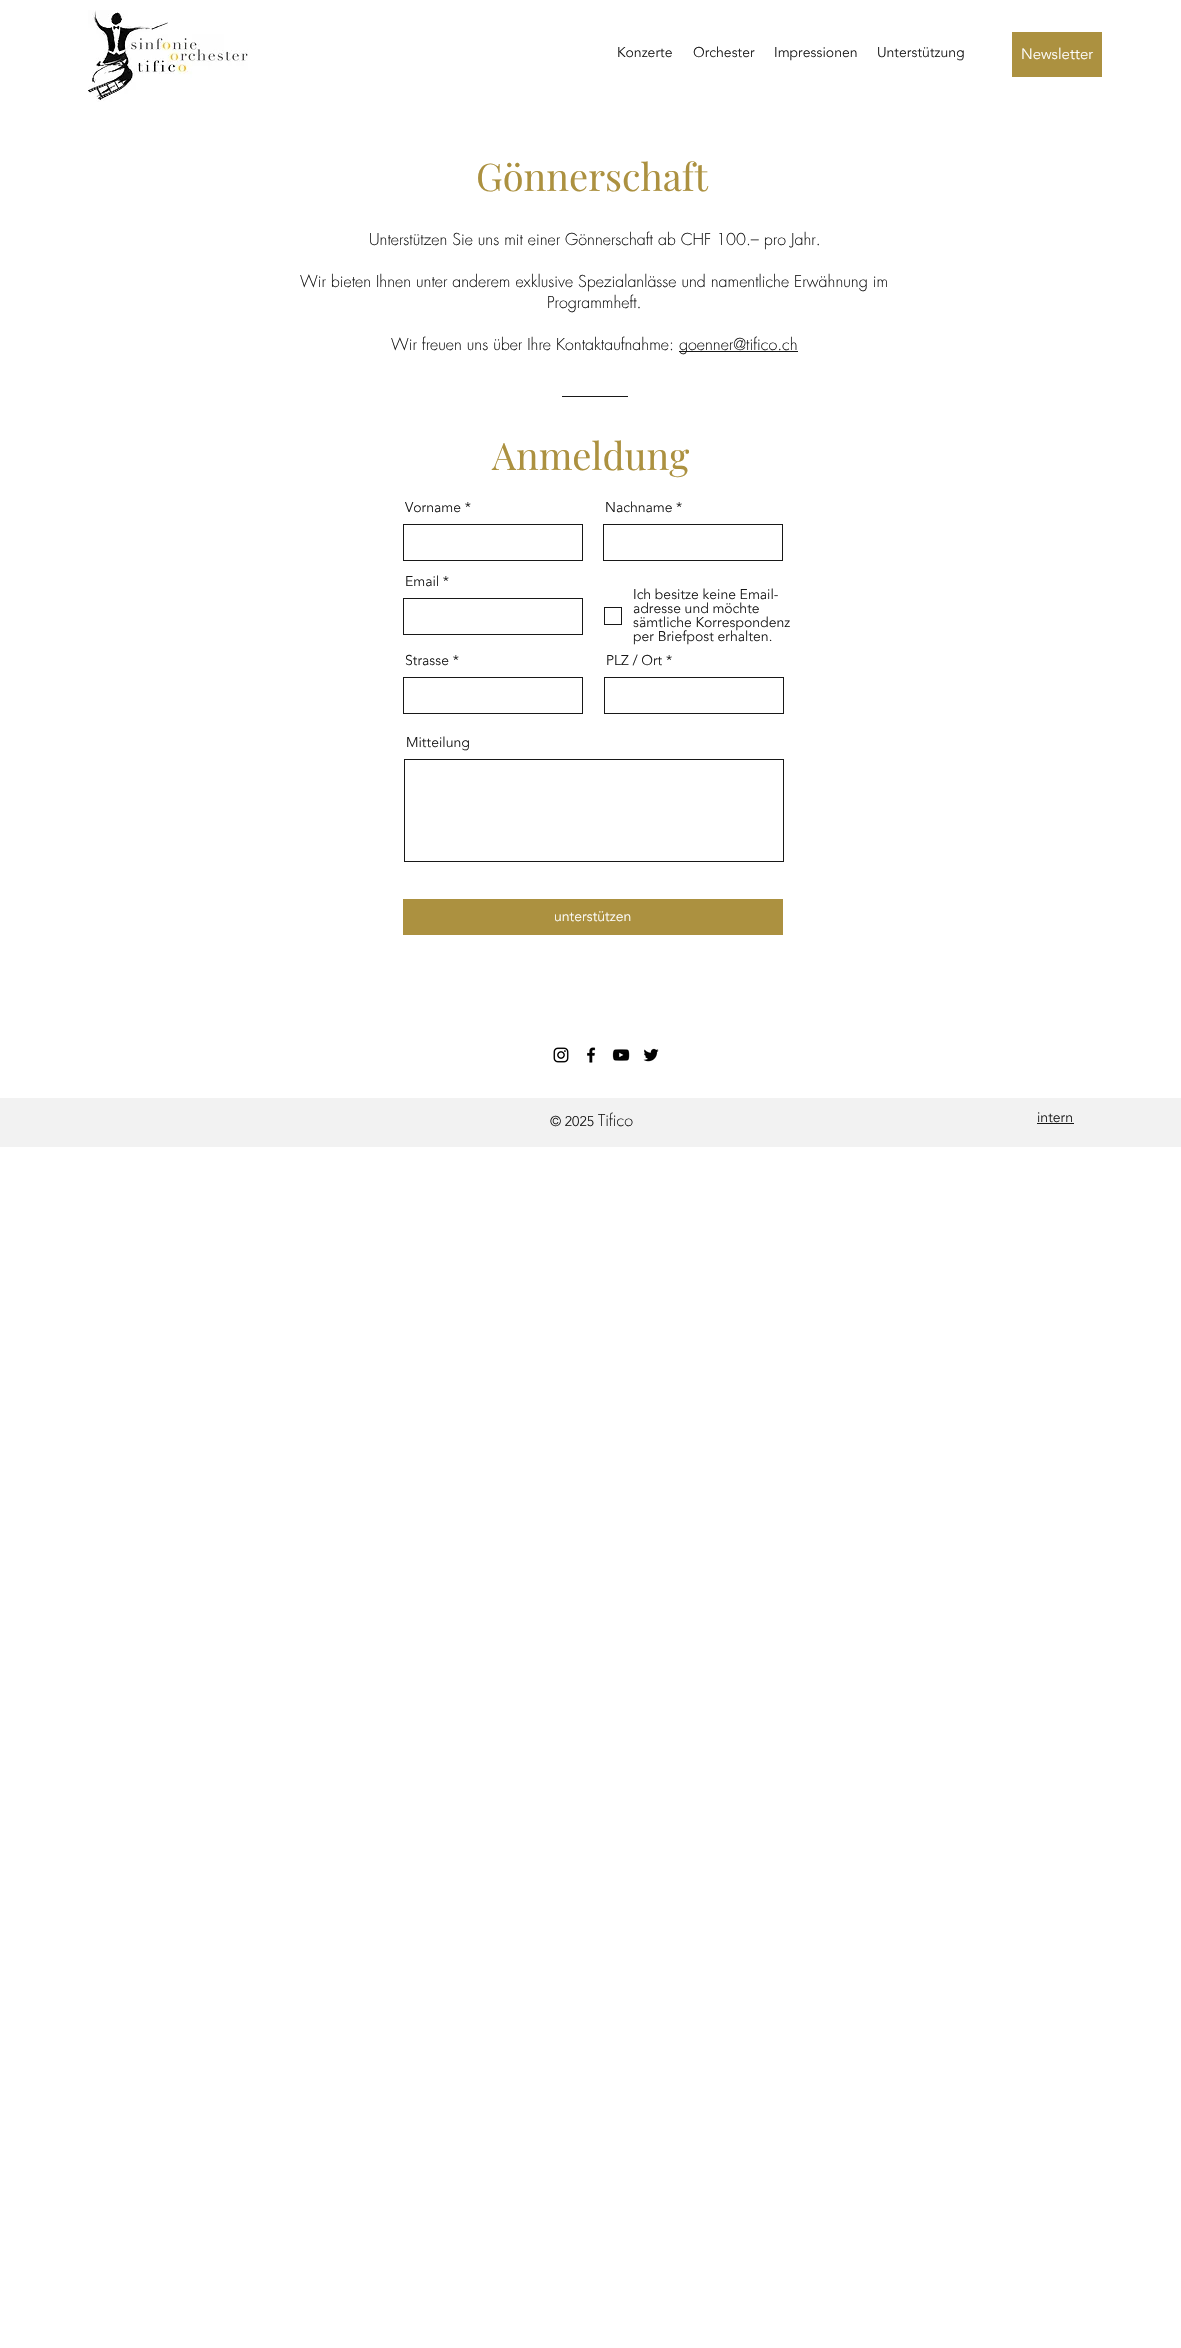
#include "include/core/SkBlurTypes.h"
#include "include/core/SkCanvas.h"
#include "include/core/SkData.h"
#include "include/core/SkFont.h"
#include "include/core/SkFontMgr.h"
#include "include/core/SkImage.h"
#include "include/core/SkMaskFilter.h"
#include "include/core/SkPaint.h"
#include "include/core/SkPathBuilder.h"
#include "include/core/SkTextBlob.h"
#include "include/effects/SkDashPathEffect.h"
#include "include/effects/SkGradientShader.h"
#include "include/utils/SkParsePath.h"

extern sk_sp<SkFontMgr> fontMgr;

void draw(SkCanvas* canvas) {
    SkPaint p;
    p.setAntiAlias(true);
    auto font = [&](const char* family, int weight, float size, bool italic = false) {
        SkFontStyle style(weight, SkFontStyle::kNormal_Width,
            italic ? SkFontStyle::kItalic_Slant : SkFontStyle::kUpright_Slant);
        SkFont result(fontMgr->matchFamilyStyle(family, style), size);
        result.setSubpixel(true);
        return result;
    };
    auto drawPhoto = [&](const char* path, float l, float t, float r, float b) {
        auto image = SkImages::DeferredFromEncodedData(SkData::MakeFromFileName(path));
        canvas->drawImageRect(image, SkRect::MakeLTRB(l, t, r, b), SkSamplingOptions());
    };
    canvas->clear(0xFFFFFFFF);
    drawPhoto("media/1.png", 88, 10, 248, 102);
    auto font1 = font("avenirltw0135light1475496", 300, 14);
    p.setColor(0xFF181818);
    {
        const struct { const char* s; float x, y; } items[] = {
            {"Konzerte", 617, 57},
            {"Orchester", 693, 57},
            {"Impressionen", 774, 57},
            {"Unterstützung", 877, 57},
        };
        for (auto [s, x, y] : items) {
            canvas->drawString(s, x, y, font1, p);
        }
    }
    p.setColor(0xFFAC9140);
    canvas->drawRect(SkRect::MakeLTRB(1012, 32, 1102, 77), p);
    auto font2 = font("avenirltw0135light1475496", 300, 15);
    p.setColor(0xFFFFFFFF);
    canvas->drawString("Newsletter", 1021, 59, font2, p);
    auto font3 = font("Playfair Display", 400, 38);
    p.setColor(0xFFAC9140);
    canvas->drawString("Gönnerschaft", 476, 191, font3, p);
    auto font4 = font("futura", 300, 16);
    p.setColor(0xFF181818);
    {
        const struct { const char* s; float x, y; } items[] = {
            {"Unterstützen Sie uns mit einer Gönnerschaft ab CHF 100.– pro Jahr.", 369, 245},
            {"Wir bieten Ihnen unter anderem exklusive Spezialanlässe und namentliche Erwähnung im", 300, 287},
            {"Programmheft.", 547, 308},
            {"Wir freuen uns über Ihre Kontaktaufnahme:", 391, 350},
        };
        for (auto [s, x, y] : items) {
            canvas->drawString(s, x, y, font4, p);
        }
    }
    canvas->drawRect(SkRect::MakeLTRB(679, 351, 798, 352), p);
    canvas->drawString("goenner@tifico.ch", 679, 350, font4, p);
    canvas->drawRect(SkRect::MakeLTRB(562, 396, 628, 397), p);
    p.setColor(0xFFAC9140);
    canvas->drawString("Anmeldung", 492, 470, font3, p);
    p.setColor(0xFF181818);
    canvas->drawString("Vorname *", 405, 512, font1, p);
    p.setStyle(SkPaint::kStroke_Style);
    p.setStrokeWidth(1);
    canvas->drawRect(SkRect::MakeLTRB(403.5f, 524.5f, 582.5f, 560.5f), p);
    p.setStyle(SkPaint::kFill_Style);
    canvas->drawString("Nachname *", 605, 512, font1, p);
    p.setStyle(SkPaint::kStroke_Style);
    canvas->drawRect(SkRect::MakeLTRB(603.5f, 524.5f, 782.5f, 560.5f), p);
    p.setStyle(SkPaint::kFill_Style);
    canvas->drawString("Email *", 405, 586, font1, p);
    p.setStyle(SkPaint::kStroke_Style);
    canvas->drawRect(SkRect::MakeLTRB(403.5f, 598.5f, 582.5f, 634.5f), p);
    canvas->drawRect(SkRect::MakeLTRB(604.5f, 607.5f, 621.5f, 624.5f), p);
    p.setStyle(SkPaint::kFill_Style);
    {
        const struct { const char* s; float x, y; } items[] = {
            {"Ich besitze keine Email-", 633, 599},
            {"adresse und möchte", 633, 613},
            {"sämtliche Korrespondenz", 633, 627},
            {"per Briefpost erhalten.", 633, 641},
            {"Strasse *", 405, 665},
        };
        for (auto [s, x, y] : items) {
            canvas->drawString(s, x, y, font1, p);
        }
    }
    p.setStyle(SkPaint::kStroke_Style);
    canvas->drawRect(SkRect::MakeLTRB(403.5f, 677.5f, 582.5f, 713.5f), p);
    p.setStyle(SkPaint::kFill_Style);
    canvas->drawString("PLZ / Ort *", 606, 665, font1, p);
    p.setStyle(SkPaint::kStroke_Style);
    canvas->drawRect(SkRect::MakeLTRB(604.5f, 677.5f, 783.5f, 713.5f), p);
    p.setStyle(SkPaint::kFill_Style);
    canvas->drawString("Mitteilung", 406, 747, font1, p);
    p.setStyle(SkPaint::kStroke_Style);
    canvas->drawRect(SkRect::MakeLTRB(404.5f, 759.5f, 783.5f, 861.5f), p);
    p.setStyle(SkPaint::kFill_Style);
    p.setColor(0xFFAC9140);
    canvas->drawRect(SkRect::MakeLTRB(403, 899, 783, 935), p);
    p.setColor(0xFFFFFFFF);
    canvas->drawString("unterstützen", 554, 921, font1, p);
    drawPhoto("media/2.png", 553, 1047, 569, 1063);
    drawPhoto("media/3.png", 587, 1047, 596, 1063);
    drawPhoto("media/4.png", 612, 1049, 630, 1061);
    drawPhoto("media/5.png", 643, 1048, 659, 1062);
    p.setColor(0xFFF2F2F2);
    canvas->drawRect(SkRect::MakeLTRB(0, 1098, 1181, 1147), p);
    p.setColor(0xFF181818);
    canvas->drawString("© 2025", 550, 1126, font1, p);
    canvas->drawString("Tifico", 598, 1126, font4, p);
    canvas->drawString("intern", 1037, 1122, font1, p);
    canvas->drawRect(SkRect::MakeLTRB(1037, 1123, 1074, 1124), p);
}
